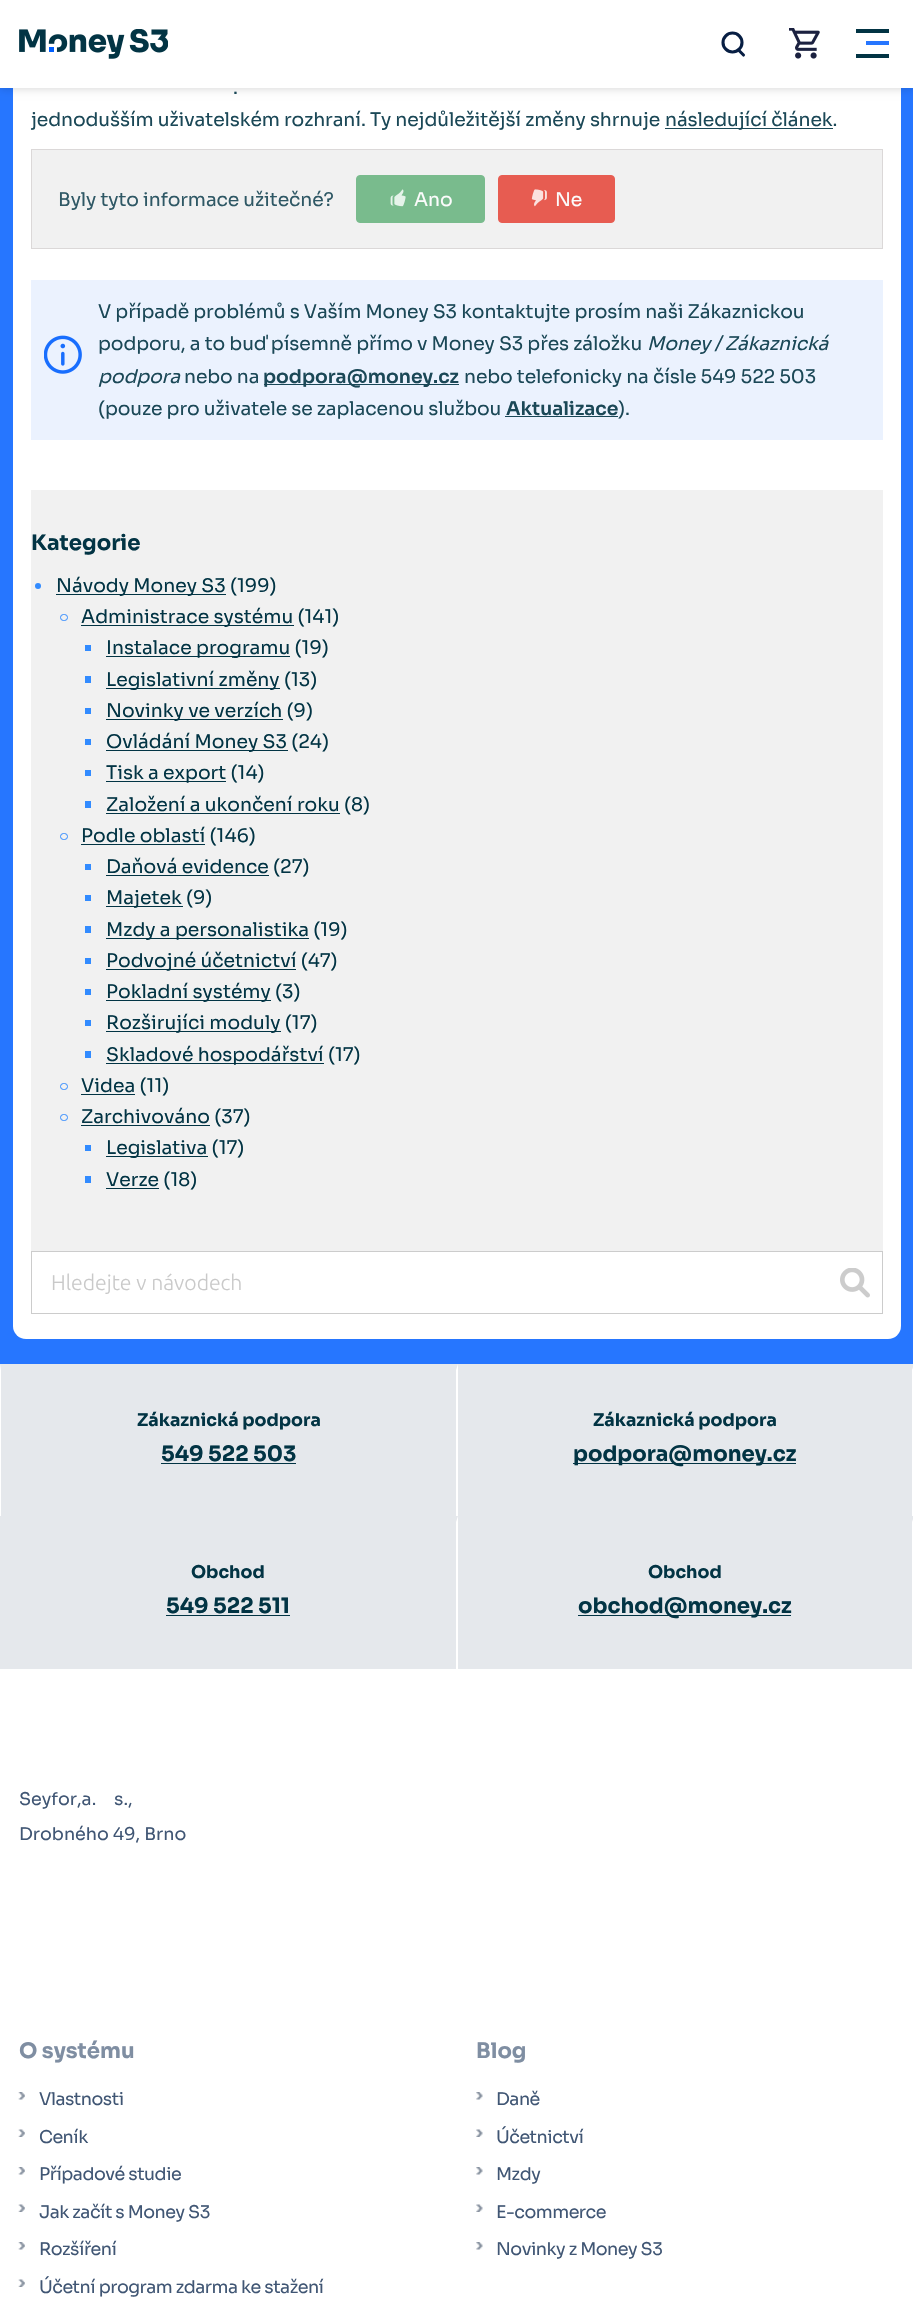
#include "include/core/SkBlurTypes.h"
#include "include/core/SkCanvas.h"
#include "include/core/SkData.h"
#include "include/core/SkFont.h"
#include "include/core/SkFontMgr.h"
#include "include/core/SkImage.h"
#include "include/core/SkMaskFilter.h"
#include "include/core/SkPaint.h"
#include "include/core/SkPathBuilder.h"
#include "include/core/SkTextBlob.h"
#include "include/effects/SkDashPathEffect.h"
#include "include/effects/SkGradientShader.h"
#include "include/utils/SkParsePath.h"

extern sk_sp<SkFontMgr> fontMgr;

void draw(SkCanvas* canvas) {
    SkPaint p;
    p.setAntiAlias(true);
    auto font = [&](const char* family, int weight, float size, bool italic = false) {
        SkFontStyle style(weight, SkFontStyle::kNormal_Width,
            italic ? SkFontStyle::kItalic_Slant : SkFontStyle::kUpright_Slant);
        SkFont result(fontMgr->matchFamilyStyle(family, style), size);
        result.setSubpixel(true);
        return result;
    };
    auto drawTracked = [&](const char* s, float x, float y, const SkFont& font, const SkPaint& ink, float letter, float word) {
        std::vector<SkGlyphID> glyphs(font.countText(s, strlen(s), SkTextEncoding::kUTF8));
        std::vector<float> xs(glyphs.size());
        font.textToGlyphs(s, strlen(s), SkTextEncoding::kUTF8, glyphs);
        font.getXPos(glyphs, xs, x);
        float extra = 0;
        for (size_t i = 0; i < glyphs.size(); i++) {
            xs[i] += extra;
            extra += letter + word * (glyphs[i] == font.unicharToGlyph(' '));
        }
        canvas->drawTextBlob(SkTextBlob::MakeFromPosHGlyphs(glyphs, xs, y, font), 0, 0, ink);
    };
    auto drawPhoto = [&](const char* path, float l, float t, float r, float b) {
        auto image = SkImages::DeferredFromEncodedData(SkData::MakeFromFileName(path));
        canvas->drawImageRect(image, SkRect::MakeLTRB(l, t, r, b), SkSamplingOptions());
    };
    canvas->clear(0xFFFFFFFF);
    p.setColor(0xFF2676FF);
    canvas->drawRect(SkRect::MakeLTRB(0, 88, 913, 1364), p);
    p.setColor(0xFFFFFFFF);
    canvas->drawRoundRect(SkRect::MakeLTRB(13, -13, 901, 1339), 13, 13, p);
    p.setColor(0x26000000);
    p.setMaskFilter(SkMaskFilter::MakeBlur(kNormal_SkBlurStyle, 4));
    canvas->drawRect(SkRect::MakeLTRB(0, 1, 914, 89), p);
    p.setMaskFilter(nullptr);
    p.setColor(0xFFFFFFFF);
    canvas->drawRect(SkRect::MakeLTRB(0, 0, 913, 88), p);
    drawPhoto("media/1.png", 19, 29, 168, 59);
    p.setStyle(SkPaint::kStroke_Style);
    p.setStrokeWidth(3.1f);
    p.setStrokeCap(SkPaint::kRound_Cap);
    p.setColor(0xFF071E43);
    canvas->drawPath(SkPathBuilder().moveTo(738.5f, 50).lineTo(743.5f, 55).detach(), p);
    p.setStrokeCap(SkPaint::kButt_Cap);
    canvas->drawCircle(732.5f, 42.5f, 9.5f, p);
    drawPhoto("media/2.png", 789, 28, 820, 59);
    p.setStyle(SkPaint::kFill_Style);
    {
        const struct { float l, t, r, b; SkColor color; } items[] = {
            {856, 29, 889, 33, 0xFF023444},
            {866, 41, 889, 45, 0xFF2676FF},
            {856, 54, 889, 58, 0xFF023444},
        };
        for (auto [l, t, r, b, color] : items) {
            p.setColor(color);
            canvas->drawRect(SkRect::MakeLTRB(l, t, r, b), p);
        }
    }
    auto font1 = font("Sora", 400, 18.75f);
    p.setColor(0xFF1B4857);
    drawTracked(".", 233, 94, font1, p, -0.1f, 0);
    drawTracked("jednodušším uživatelském rozhraní. Ty nejdůležitější změny shrnuje", 31, 126, font1, p, -0.1f, 0);
    canvas->drawRect(SkRect::MakeLTRB(665, 128, 833, 129), p);
    drawTracked("následující článek.", 665, 126, font1, p, -0.1f, 0);
    p.setColor(0xFFF1F1F1);
    canvas->drawRect(SkRect::MakeLTRB(31.5f, 149.5f, 882.5f, 248.5f), p);
    p.setStyle(SkPaint::kStroke_Style);
    p.setStrokeWidth(1);
    p.setColor(0xFFDBD8D8);
    canvas->drawRect(SkRect::MakeLTRB(31.5f, 149.5f, 882.5f, 248.5f), p);
    p.setStyle(SkPaint::kFill_Style);
    p.setColor(0xFF2F5865);
    drawTracked("Byly tyto informace užitečné?", 58, 206, font1, p, -0.1f, 0);
    p.setColor(0xFF79BB8D);
    canvas->drawRoundRect(SkRect::MakeLTRB(356.5f, 175.5f, 484.5f, 222.5f), 3.5f, 3.5f, p);
    p.setStyle(SkPaint::kStroke_Style);
    canvas->drawRoundRect(SkRect::MakeLTRB(356.5f, 175.5f, 484.5f, 222.5f), 3.5f, 3.5f, p);
    drawPhoto("media/3.png", 390, 189, 406, 207);
    p.setStyle(SkPaint::kFill_Style);
    p.setColor(0xFFFCFCFC);
    drawTracked("Ano", 414, 206, font1, p, -0.1f, 0);
    p.setColor(0xFFE75C51);
    canvas->drawRoundRect(SkRect::MakeLTRB(498.5f, 175.5f, 614.5f, 222.5f), 3.5f, 3.5f, p);
    p.setStyle(SkPaint::kStroke_Style);
    canvas->drawRoundRect(SkRect::MakeLTRB(498.5f, 175.5f, 614.5f, 222.5f), 3.5f, 3.5f, p);
    drawPhoto("media/4.png", 531, 189, 547, 207);
    p.setStyle(SkPaint::kFill_Style);
    p.setColor(0xFFFCFCFC);
    drawTracked("Ne", 555, 206, font1, p, -0.1f, 0);
    p.setColor(0xFFEBF2FE);
    canvas->drawRect(SkRect::MakeLTRB(31, 280, 883, 440), p);
    drawPhoto("media/5.png", 44, 335, 82, 374);
    p.setColor(0xFF1B4857);
    drawTracked("V případě problémů s Vaším Money S3 kontaktujte prosím naši Zákaznickou", 98, 318, font1, p, -0.1f, 0);
    drawTracked("podporu, a to buď písemně přímo v Money S3 přes záložku", 98, 350, font1, p, -0.1f, 0);
    auto font2 = font("Sora", 400, 18.75f, true);
    drawTracked("Money / Zákaznická", 647, 350, font2, p, -0.1f, 0);
    drawTracked("podpora", 98, 383, font2, p, -0.1f, 0);
    drawTracked("nebo na", 184, 383, font1, p, -0.1f, 0);
    p.setColor(0xFF194757);
    canvas->drawRect(SkRect::MakeLTRB(264, 384, 459, 385), p);
    auto font3 = font("Sora", 600, 18.75f);
    p.setColor(0xFF1B4857);
    canvas->drawString("podpora@money.cz", 263, 383, font3, p);
    drawTracked("nebo telefonicky na čísle 549 522 503", 464, 383, font1, p, -0.1f, 0);
    drawTracked("(pouze pro uživatele se zaplacenou službou", 98, 415, font1, p, -0.1f, 0);
    canvas->drawString("Aktualizace", 506, 415, font3, p);
    p.setColor(0xFF194757);
    canvas->drawRect(SkRect::MakeLTRB(505, 416, 618, 417), p);
    p.setColor(0xFF1B4857);
    drawTracked(").", 618, 415, font1, p, -0.1f, 0);
    p.setColor(0xFFF1F1F1);
    canvas->drawRect(SkRect::MakeLTRB(31, 490, 883, 1251), p);
    auto font4 = font("Sora", 700, 21.25f);
    p.setColor(0xFF023444);
    canvas->drawString("Kategorie", 31, 550, font4, p);
    p.setColor(0xFF328BFF);
    canvas->drawCircle(38, 586, 3, p);
    p.setColor(0xFF023444);
    canvas->drawRect(SkRect::MakeLTRB(56, 594, 226, 595), p);
    canvas->drawString("Návody Money S3 (199)", 56, 592, font1, p);
    p.setStyle(SkPaint::kStroke_Style);
    p.setColor(0xFF328BFF);
    canvas->drawRoundRect(SkRect::MakeLTRB(60.5f, 614.5f, 67.5f, 620.5f), 3, 3, p);
    p.setStyle(SkPaint::kFill_Style);
    p.setColor(0xFF023444);
    canvas->drawRect(SkRect::MakeLTRB(81, 625, 294, 626), p);
    canvas->drawString("Administrace systému (141)", 81, 623, font1, p);
    p.setColor(0xFF328BFF);
    canvas->drawRect(SkRect::MakeLTRB(85, 645, 91, 651), p);
    p.setColor(0xFF023444);
    canvas->drawRect(SkRect::MakeLTRB(106, 656, 290, 657), p);
    canvas->drawString("Instalace programu (19)", 106, 654, font1, p);
    p.setColor(0xFF328BFF);
    canvas->drawRect(SkRect::MakeLTRB(85, 676, 91, 683), p);
    p.setColor(0xFF023444);
    canvas->drawRect(SkRect::MakeLTRB(106, 688, 280, 689), p);
    canvas->drawString("Legislativní změny (13)", 106, 686, font1, p);
    p.setColor(0xFF328BFF);
    canvas->drawRect(SkRect::MakeLTRB(85, 708, 91, 714), p);
    p.setColor(0xFF023444);
    canvas->drawRect(SkRect::MakeLTRB(106, 719, 283, 720), p);
    canvas->drawString("Novinky ve verzích (9)", 106, 717, font1, p);
    p.setColor(0xFF328BFF);
    canvas->drawRect(SkRect::MakeLTRB(85, 739, 91, 745), p);
    p.setColor(0xFF023444);
    canvas->drawRect(SkRect::MakeLTRB(106, 750, 288, 751), p);
    canvas->drawString("Ovládání Money S3 (24)", 106, 748, font1, p);
    p.setColor(0xFF328BFF);
    canvas->drawRect(SkRect::MakeLTRB(85, 770, 91, 776), p);
    p.setColor(0xFF023444);
    canvas->drawRect(SkRect::MakeLTRB(106, 781, 226, 782), p);
    canvas->drawString("Tisk a export (14)", 106, 779, font1, p);
    p.setColor(0xFF328BFF);
    canvas->drawRect(SkRect::MakeLTRB(85, 801, 91, 808), p);
    p.setColor(0xFF023444);
    canvas->drawRect(SkRect::MakeLTRB(106, 813, 340, 814), p);
    canvas->drawString("Založení a ukončení roku (8)", 106, 811, font1, p);
    p.setStyle(SkPaint::kStroke_Style);
    p.setColor(0xFF328BFF);
    canvas->drawRoundRect(SkRect::MakeLTRB(60.5f, 833.5f, 67.5f, 839.5f), 3, 3, p);
    p.setStyle(SkPaint::kFill_Style);
    p.setColor(0xFF023444);
    canvas->drawRect(SkRect::MakeLTRB(81, 844, 205, 845), p);
    canvas->drawString("Podle oblastí (146)", 81, 842, font1, p);
    p.setColor(0xFF328BFF);
    canvas->drawRect(SkRect::MakeLTRB(85, 864, 91, 870), p);
    p.setColor(0xFF023444);
    canvas->drawRect(SkRect::MakeLTRB(106, 875, 269, 876), p);
    canvas->drawString("Daňová evidence (27)", 106, 873, font1, p);
    p.setColor(0xFF328BFF);
    canvas->drawRect(SkRect::MakeLTRB(85, 895, 91, 901), p);
    p.setColor(0xFF023444);
    canvas->drawRect(SkRect::MakeLTRB(106, 906, 183, 907), p);
    canvas->drawString("Majetek (9)", 106, 904, font1, p);
    p.setColor(0xFF328BFF);
    canvas->drawRect(SkRect::MakeLTRB(85, 926, 91, 933), p);
    p.setColor(0xFF023444);
    canvas->drawRect(SkRect::MakeLTRB(106, 938, 309, 939), p);
    canvas->drawString("Mzdy a personalistika (19)", 106, 936, font1, p);
    p.setColor(0xFF328BFF);
    canvas->drawRect(SkRect::MakeLTRB(85, 958, 91, 964), p);
    p.setColor(0xFF023444);
    canvas->drawRect(SkRect::MakeLTRB(106, 969, 296, 970), p);
    canvas->drawString("Podvojné účetnictví (47)", 106, 967, font1, p);
    p.setColor(0xFF328BFF);
    canvas->drawRect(SkRect::MakeLTRB(85, 989, 91, 995), p);
    p.setColor(0xFF023444);
    canvas->drawRect(SkRect::MakeLTRB(106, 1000, 271, 1001), p);
    canvas->drawString("Pokladní systémy (3)", 106, 998, font1, p);
    p.setColor(0xFF328BFF);
    canvas->drawRect(SkRect::MakeLTRB(85, 1020, 91, 1026), p);
    p.setColor(0xFF023444);
    canvas->drawRect(SkRect::MakeLTRB(106, 1031, 281, 1032), p);
    canvas->drawString("Rozširujíci moduly (17)", 106, 1029, font1, p);
    p.setColor(0xFF328BFF);
    canvas->drawRect(SkRect::MakeLTRB(85, 1051, 91, 1058), p);
    p.setColor(0xFF023444);
    canvas->drawRect(SkRect::MakeLTRB(106, 1063, 324, 1064), p);
    canvas->drawString("Skladové hospodářství (17)", 106, 1061, font1, p);
    p.setStyle(SkPaint::kStroke_Style);
    p.setColor(0xFF328BFF);
    canvas->drawRoundRect(SkRect::MakeLTRB(60.5f, 1083.5f, 67.5f, 1089.5f), 3, 3, p);
    p.setStyle(SkPaint::kFill_Style);
    p.setColor(0xFF023444);
    canvas->drawRect(SkRect::MakeLTRB(81, 1094, 135, 1095), p);
    canvas->drawString("Videa (11)", 81, 1092, font1, p);
    p.setStyle(SkPaint::kStroke_Style);
    p.setColor(0xFF328BFF);
    canvas->drawRoundRect(SkRect::MakeLTRB(60.5f, 1114.5f, 67.5f, 1120.5f), 3, 3, p);
    p.setStyle(SkPaint::kFill_Style);
    p.setColor(0xFF023444);
    canvas->drawRect(SkRect::MakeLTRB(81, 1125, 210, 1126), p);
    canvas->drawString("Zarchivováno (37)", 81, 1123, font1, p);
    p.setColor(0xFF328BFF);
    canvas->drawRect(SkRect::MakeLTRB(85, 1145, 91, 1151), p);
    p.setColor(0xFF023444);
    canvas->drawRect(SkRect::MakeLTRB(106, 1156, 208, 1157), p);
    canvas->drawString("Legislativa (17)", 106, 1154, font1, p);
    p.setColor(0xFF328BFF);
    canvas->drawRect(SkRect::MakeLTRB(85, 1176, 91, 1183), p);
    p.setColor(0xFF023444);
    canvas->drawRect(SkRect::MakeLTRB(106, 1188, 159, 1189), p);
    canvas->drawString("Verze (18)", 106, 1186, font1, p);
    p.setStyle(SkPaint::kStroke_Style);
    p.setColor(0xFFCCCCCC);
    canvas->drawRect(SkRect::MakeLTRB(31.5f, 1251.5f, 882.5f, 1313.5f), p);
    auto font5 = font("Ubuntu", 300, 21.25f);
    p.setStyle(SkPaint::kFill_Style);
    p.setColor(0xFFC9C9C9);
    canvas->drawString("Hledejte v návodech", 51, 1290, font5, p);
    drawPhoto("media/6.png", 840, 1268, 870, 1298);
    p.setColor(0xFFE5E8EC);
    canvas->drawRect(SkRect::MakeLTRB(0, 1364, 913, 1669), p);
    p.setColor(0xFFFFFFFF);
    canvas->drawPath(SkPathBuilder().moveTo(458, 1364).lineTo(458, 1516).lineTo(456, 1516).lineTo(456, 1370).close().detach(), p);
    canvas->drawPath(SkPathBuilder().moveTo(0, 1516).lineTo(0, 1364).lineTo(1, 1370).lineTo(1, 1516).close().detach(), p);
    auto font6 = font("Sora", 700, 17.5f);
    p.setColor(0xFF023444);
    canvas->drawString("Zákaznická podpora", 137, 1426, font6, p);
    canvas->drawString("549 522 503", 161, 1461, font4, p);
    canvas->drawRect(SkRect::MakeLTRB(161, 1463, 296, 1464), p);
    p.setColor(0xFFFFFFFF);
    canvas->drawPath(SkPathBuilder().moveTo(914, 1364).lineTo(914, 1516).lineTo(912, 1516).lineTo(912, 1370).close().detach(), p);
    p.setColor(0xFF023444);
    canvas->drawString("Zákaznická podpora", 593, 1426, font6, p);
    canvas->drawRect(SkRect::MakeLTRB(573, 1463, 796, 1464), p);
    canvas->drawString("podpora@money.cz", 573, 1461, font4, p);
    p.setColor(0xFFFFFFFF);
    canvas->drawPath(SkPathBuilder().moveTo(458, 1516).lineTo(458, 1669).lineTo(456, 1669).lineTo(456, 1522).close().detach(), p);
    p.setColor(0xFF023444);
    canvas->drawString("Obchod", 191, 1578, font6, p);
    canvas->drawString("549 522 511", 166, 1613, font4, p);
    canvas->drawRect(SkRect::MakeLTRB(166, 1615, 290, 1616), p);
    p.setColor(0xFFFFFFFF);
    canvas->drawPath(SkPathBuilder().moveTo(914, 1516).lineTo(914, 1669).lineTo(912, 1669).lineTo(912, 1522).close().detach(), p);
    p.setColor(0xFF023444);
    canvas->drawString("Obchod", 648, 1578, font6, p);
    canvas->drawRect(SkRect::MakeLTRB(578, 1615, 791, 1616), p);
    canvas->drawString("obchod@money.cz", 578, 1613, font4, p);
    auto font7 = font("Sora", 400, 17.5f);
    p.setColor(0xFF405674);
    canvas->drawString("Seyfor, a.", 19, 1805, font7, p);
    canvas->drawString("s.,", 114, 1805, font7, p);
    canvas->drawString("Drobného 49, Brno", 19, 1840, font7, p);
    p.setColor(0xFF7F8EA2);
    canvas->drawString("O systému", 19, 2058, font4, p);
    drawPhoto("media/7.png", 18, 2092, 25, 2100);
    p.setColor(0xFF405674);
    drawTracked("Vlastnosti", 39, 2105, font7, p, -0.5f, 0);
    drawPhoto("media/8.png", 18, 2129, 25, 2137);
    drawTracked("Ceník", 39, 2143, font7, p, -0.5f, 0);
    drawPhoto("media/7.png", 18, 2167, 25, 2175);
    drawTracked("Případové studie", 39, 2180, font7, p, -0.5f, 0);
    drawPhoto("media/8.png", 18, 2204, 25, 2212);
    drawTracked("Jak začít s Money S3", 39, 2218, font7, p, -0.5f, 0);
    drawPhoto("media/7.png", 18, 2242, 25, 2250);
    drawTracked("Rozšíření", 39, 2255, font7, p, -0.5f, 0);
    drawPhoto("media/8.png", 18, 2279, 25, 2287);
    drawTracked("Účetní program zdarma ke stažení", 39, 2293, font7, p, -0.5f, 0);
    p.setColor(0xFF7F8EA2);
    canvas->drawString("Blog", 476, 2058, font4, p);
    drawPhoto("media/9.png", 476, 2092, 483, 2100);
    p.setColor(0xFF405674);
    drawTracked("Daně", 496, 2105, font7, p, -0.5f, 0);
    drawPhoto("media/10.png", 476, 2129, 483, 2137);
    drawTracked("Účetnictví", 496, 2143, font7, p, -0.5f, 0);
    drawPhoto("media/9.png", 476, 2167, 483, 2175);
    drawTracked("Mzdy", 496, 2180, font7, p, -0.5f, 0);
    drawPhoto("media/10.png", 476, 2204, 483, 2212);
    drawTracked("E-commerce", 496, 2218, font7, p, -0.5f, 0);
    drawPhoto("media/9.png", 476, 2242, 483, 2250);
    drawTracked("Novinky z Money S3", 496, 2255, font7, p, -0.5f, 0);
}
